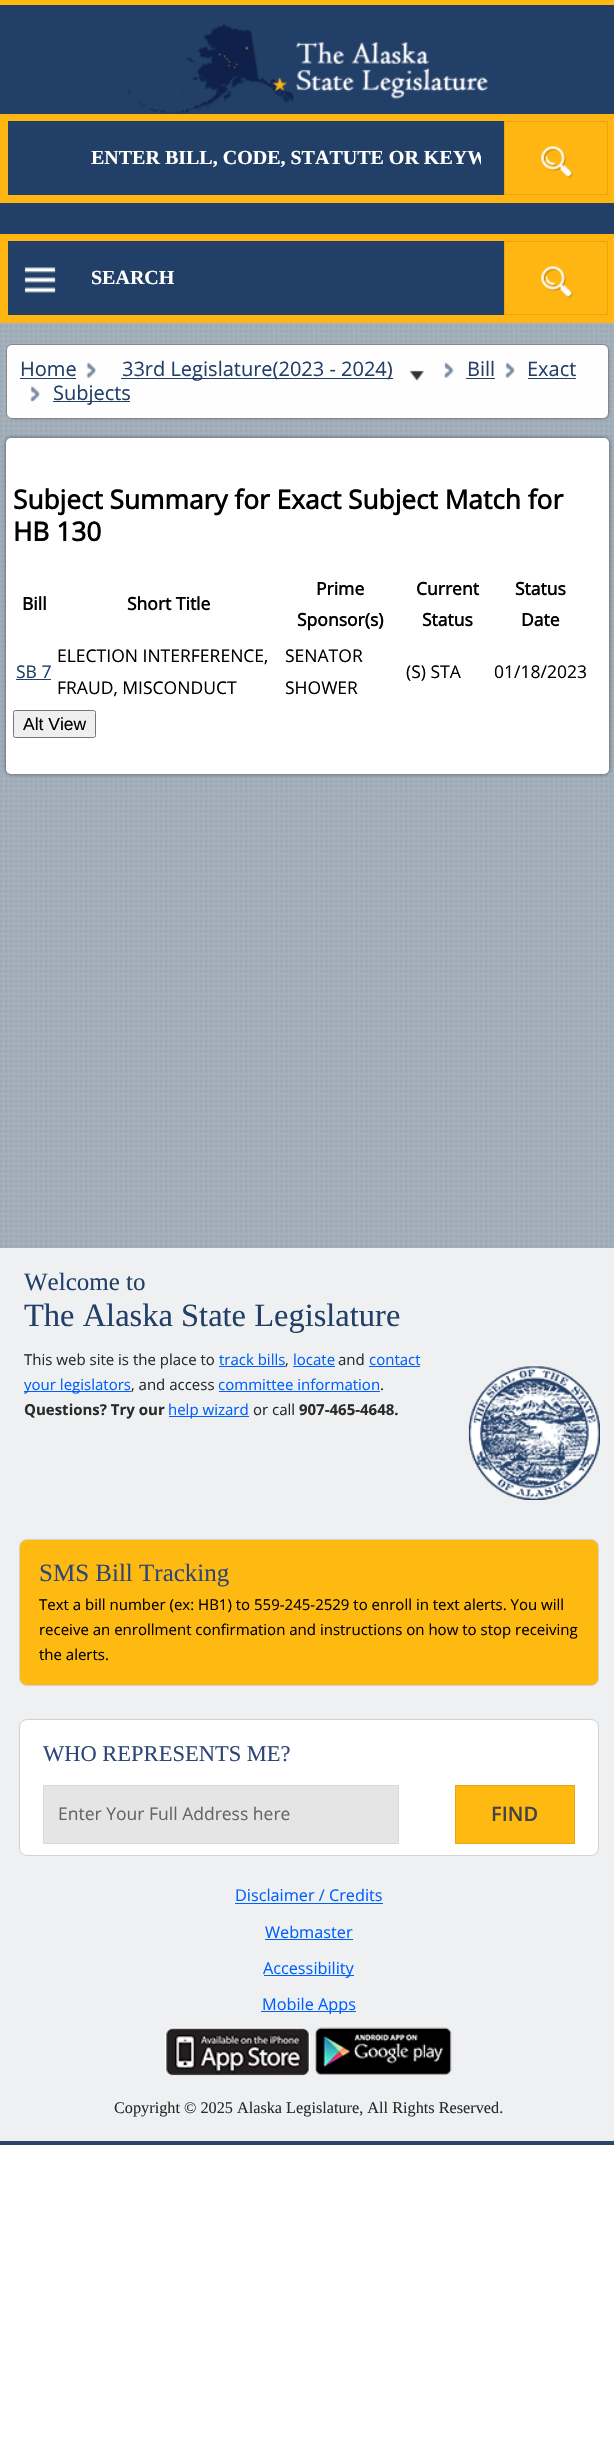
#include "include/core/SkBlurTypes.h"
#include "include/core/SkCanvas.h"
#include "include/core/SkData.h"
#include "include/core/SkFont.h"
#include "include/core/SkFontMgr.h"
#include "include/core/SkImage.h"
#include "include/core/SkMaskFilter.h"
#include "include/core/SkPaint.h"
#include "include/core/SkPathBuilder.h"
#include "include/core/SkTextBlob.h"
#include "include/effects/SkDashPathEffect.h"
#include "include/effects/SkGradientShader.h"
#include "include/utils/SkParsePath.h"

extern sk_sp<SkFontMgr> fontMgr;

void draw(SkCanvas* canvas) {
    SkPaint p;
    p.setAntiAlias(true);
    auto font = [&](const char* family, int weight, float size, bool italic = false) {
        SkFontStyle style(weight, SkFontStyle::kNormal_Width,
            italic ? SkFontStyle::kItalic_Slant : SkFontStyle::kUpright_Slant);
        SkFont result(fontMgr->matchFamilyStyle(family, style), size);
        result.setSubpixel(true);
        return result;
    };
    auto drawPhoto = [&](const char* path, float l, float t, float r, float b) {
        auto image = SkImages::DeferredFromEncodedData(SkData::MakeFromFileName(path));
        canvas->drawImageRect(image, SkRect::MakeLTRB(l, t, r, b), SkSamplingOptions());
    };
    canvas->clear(0xFFFFFFFF);
    drawPhoto("media/1.png", 0, 323, 614, 1248);
    p.setColor(0xFF223F68);
    canvas->drawRect(SkRect::MakeLTRB(0, 5, 614, 234), p);
    p.setColor(0xFFFFBA11);
    canvas->drawRect(SkRect::MakeLTRB(0, 0, 614, 5), p);
    drawPhoto("media/2.png", 127, 23, 488, 114);
    p.setColor(0xFFFFB612);
    canvas->drawRect(SkRect::MakeLTRB(0, 114, 614, 203), p);
    p.setColor(0xFF223F68);
    canvas->drawRect(SkRect::MakeLTRB(8, 121, 504, 195), p);
    canvas->save();
    canvas->clipRect(SkRect::MakeLTRB(91, 148, 481, 170));
    auto font1 = font("Liberation Serif", 700, 20);
    p.setColor(0xFFFFFFFF);
    canvas->drawString("ENTER BILL, CODE, STATUTE OR KEYW", 91, 164, font1, p);
    canvas->restore();
    drawPhoto("media/3.png", 541, 146, 573, 178);
    p.setStyle(SkPaint::kStroke_Style);
    p.setStrokeWidth(1);
    p.setColor(0xFFE8A50F);
    canvas->drawRect(SkRect::MakeLTRB(504.5f, 121.5f, 607.5f, 194.5f), p);
    p.setStyle(SkPaint::kFill_Style);
    p.setColor(0xFFFFB612);
    canvas->drawRect(SkRect::MakeLTRB(0, 234, 614, 323), p);
    p.setColor(0xFF223F68);
    canvas->drawRect(SkRect::MakeLTRB(8, 241, 504, 315), p);
    drawPhoto("media/4.png", 24, 267, 56, 293);
    p.setColor(0xFFFFFFFF);
    canvas->drawString("SEARCH", 91, 284, font1, p);
    drawPhoto("media/3.png", 541, 266, 573, 298);
    p.setStyle(SkPaint::kStroke_Style);
    p.setColor(0xFFE8A50F);
    canvas->drawRect(SkRect::MakeLTRB(504.5f, 241.5f, 607.5f, 314.5f), p);
    p.setStyle(SkPaint::kFill_Style);
    p.setColor(0x1A000000);
    p.setMaskFilter(SkMaskFilter::MakeBlur(kNormal_SkBlurStyle, 0.5f));
    canvas->drawRoundRect(SkRect::MakeLTRB(8, 345, 610, 420), 6, 6, p);
    p.setMaskFilter(nullptr);
    p.setColor(0xFFFEFEFE);
    canvas->drawRoundRect(SkRect::MakeLTRB(6.5f, 344.5f, 608.5f, 418.5f), 5.5f, 5.5f, p);
    p.setStyle(SkPaint::kStroke_Style);
    p.setColor(0xFF888888);
    canvas->drawRoundRect(SkRect::MakeLTRB(6.5f, 344.5f, 608.5f, 418.5f), 5.5f, 5.5f, p);
    auto font2 = font("Open Sans", 400, 20);
    p.setStyle(SkPaint::kFill_Style);
    p.setColor(0xFF223F68);
    canvas->drawString("Home", 20, 376, font2, p);
    canvas->drawRect(SkRect::MakeLTRB(20, 378, 76, 379), p);
    drawPhoto("media/5.png", 86, 362, 97, 378);
    canvas->drawRect(SkRect::MakeLTRB(121, 378, 393, 379), p);
    canvas->drawString("33rd Legislature(2023 - 2024)", 122, 376, font2, p);
    drawPhoto("media/6.png", 410, 370, 424, 381);
    drawPhoto("media/7.png", 443, 362, 454, 378);
    canvas->drawString("Bill", 467, 376, font2, p);
    canvas->drawRect(SkRect::MakeLTRB(466, 378, 495, 379), p);
    drawPhoto("media/8.png", 505, 362, 515, 378);
    canvas->drawString("Exact", 527, 376, font2, p);
    canvas->drawRect(SkRect::MakeLTRB(528, 378, 576, 379), p);
    drawPhoto("media/9.png", 30, 386, 40, 402);
    canvas->drawRect(SkRect::MakeLTRB(53, 401, 130, 402), p);
    canvas->drawString("Subjects", 53, 400, font2, p);
    p.setColor(0x80000000);
    p.setMaskFilter(SkMaskFilter::MakeBlur(kNormal_SkBlurStyle, 2));
    canvas->drawRoundRect(SkRect::MakeLTRB(6, 438, 609, 774), 5, 5, p);
    p.setMaskFilter(nullptr);
    p.setColor(0xFFFFFFFF);
    canvas->drawRoundRect(SkRect::MakeLTRB(6, 438, 609, 774), 5, 5, p);
    auto font3 = font("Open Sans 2", 700, 26.25f);
    p.setColor(0xFF000000);
    canvas->drawString("Subject Summary for Exact Subject Match for", 13, 509, font3, p);
    canvas->drawString("HB 130", 13, 541, font3, p);
    auto font4 = font("Open Sans 2", 700, 17.5f);
    {
        const struct { const char* s; float x, y; } items[] = {
            {"Bill", 22, 610},
            {"Short Title", 127, 610},
            {"Prime", 316, 595},
            {"Sponsor(s)", 297, 626},
            {"Current", 416, 595},
            {"Status", 422, 626},
            {"Status", 515, 595},
            {"Date", 521, 626},
        };
        for (auto [s, x, y] : items) {
            canvas->drawString(s, x, y, font4, p);
        }
    }
    auto font5 = font("Open Sans", 400, 17.5f);
    p.setColor(0xFF223F68);
    canvas->drawString("SB 7", 16, 678, font5, p);
    canvas->drawRect(SkRect::MakeLTRB(16, 679, 51, 680), p);
    p.setColor(0xFF000000);
    {
        const struct { const char* s; float x, y; } items[] = {
            {"ELECTION INTERFERENCE,", 57, 662},
            {"FRAUD, MISCONDUCT", 57, 694},
            {"SENATOR", 285, 662},
            {"SHOWER", 285, 694},
            {"(S) STA", 406, 678},
            {"01/18/2023", 494, 678},
        };
        for (auto [s, x, y] : items) {
            canvas->drawString(s, x, y, font5, p);
        }
    }
    p.setColor(0xFFEFEFEF);
    canvas->drawRoundRect(SkRect::MakeLTRB(13.5f, 710.5f, 95.5f, 737.5f), 2, 2, p);
    p.setStyle(SkPaint::kStroke_Style);
    p.setColor(0xFF767676);
    canvas->drawRoundRect(SkRect::MakeLTRB(13.5f, 710.5f, 95.5f, 737.5f), 2, 2, p);
    auto font6 = font("Liberation Sans", 400, 17.5f);
    p.setStyle(SkPaint::kFill_Style);
    p.setColor(0xFF000000);
    canvas->drawString("Alt View", 23, 730, font6, p);
    p.setColor(0xFFEEF0F2);
    canvas->drawRect(SkRect::MakeLTRB(0, 1248, 614, 2141), p);
    p.setColor(0xFF2A466D);
    canvas->drawRect(SkRect::MakeLTRB(0, 2141, 614, 2145), p);
    auto font7 = font("Liberation Serif", 400, 25);
    p.setColor(0xFF223F68);
    canvas->drawString("Welcome to", 24, 1290, font7, p);
    auto font8 = font("Liberation Serif", 400, 32.5f);
    canvas->drawString("The Alaska State Legislature", 24, 1326, font8, p);
    auto font9 = font("Open Sans", 400, 15);
    p.setColor(0xFF2B2B2B);
    canvas->drawString("This web site is the place to", 24, 1365, font9, p);
    p.setColor(0xFF0060FF);
    canvas->drawString("track bills", 219, 1365, font9, p);
    canvas->drawRect(SkRect::MakeLTRB(219, 1366, 285, 1367), p);
    p.setColor(0xFF2B2B2B);
    canvas->drawString(",", 285, 1365, font9, p);
    p.setColor(0xFF0060FF);
    canvas->drawString("locate", 293, 1365, font9, p);
    canvas->drawRect(SkRect::MakeLTRB(293, 1366, 335, 1367), p);
    p.setColor(0xFF2B2B2B);
    canvas->drawString("and", 338, 1365, font9, p);
    p.setColor(0xFF0060FF);
    canvas->drawString("contact", 369, 1365, font9, p);
    canvas->drawRect(SkRect::MakeLTRB(369, 1366, 420, 1367), p);
    canvas->drawRect(SkRect::MakeLTRB(24, 1391, 131, 1392), p);
    canvas->save();
    canvas->clipRect(SkRect::MakeLTRB(24, 1346, 604, 1500));
    canvas->drawString("your legislators", 24, 1390, font9, p);
    canvas->restore();
    p.setColor(0xFF2B2B2B);
    canvas->drawString(", and access", 131, 1390, font9, p);
    p.setColor(0xFF0060FF);
    canvas->drawString("committee information", 218, 1390, font9, p);
    canvas->drawRect(SkRect::MakeLTRB(219, 1391, 380, 1392), p);
    p.setColor(0xFF2B2B2B);
    canvas->drawString(".", 380, 1390, font9, p);
    auto font10 = font("Open Sans", 700, 15);
    canvas->drawString("Questions? Try our", 24, 1415, font10, p);
    p.setColor(0xFF0060FF);
    canvas->drawRect(SkRect::MakeLTRB(169, 1416, 249, 1417), p);
    canvas->drawString("help wizard", 168, 1415, font9, p);
    p.setColor(0xFF2B2B2B);
    canvas->drawString("or call", 253, 1415, font9, p);
    canvas->drawString("907-465-4648.", 299, 1415, font10, p);
    drawPhoto("media/10.png", 468, 1366, 600, 1500);
    p.setColor(0xFFFFBA11);
    canvas->drawRoundRect(SkRect::MakeLTRB(19.5f, 1539.5f, 598.5f, 1685.5f), 7.5f, 7.5f, p);
    p.setStyle(SkPaint::kStroke_Style);
    p.setColor(0xFFD2D2D2);
    canvas->drawRoundRect(SkRect::MakeLTRB(19.5f, 1539.5f, 598.5f, 1685.5f), 7.5f, 7.5f, p);
    p.setStyle(SkPaint::kFill_Style);
    p.setColor(0xFF2E4676);
    canvas->drawString("SMS Bill Tracking", 39, 1581, font7, p);
    p.setColor(0xFF000000);
    {
        const struct { const char* s; float x, y; } items[] = {
            {"Text a bill number (ex: HB1) to 559-245-2529 to enroll in text alerts. You will", 39, 1610},
            {"receive an enrollment confirmation and instructions on how to stop receiving", 39, 1635},
            {"the alerts.", 39, 1660},
        };
        for (auto [s, x, y] : items) {
            canvas->drawString(s, x, y, font9, p);
        }
    }
    p.setColor(0xFFFFFFFF);
    canvas->drawRoundRect(SkRect::MakeLTRB(19.5f, 1719.5f, 598.5f, 1855.5f), 7.5f, 7.5f, p);
    p.setStyle(SkPaint::kStroke_Style);
    p.setColor(0xFFD2D2D2);
    canvas->drawRoundRect(SkRect::MakeLTRB(19.5f, 1719.5f, 598.5f, 1855.5f), 7.5f, 7.5f, p);
    auto font11 = font("Liberation Serif", 400, 22.5f);
    p.setStyle(SkPaint::kFill_Style);
    p.setColor(0xFF2E4676);
    canvas->drawString("WHO REPRESENTS ME?", 43, 1761, font11, p);
    p.setColor(0xFFE5E5E5);
    canvas->drawRoundRect(SkRect::MakeLTRB(43.5f, 1785.5f, 398.5f, 1843.5f), 0.5f, 0.5f, p);
    p.setStyle(SkPaint::kStroke_Style);
    p.setColor(0xFFD9D9D9);
    canvas->drawRoundRect(SkRect::MakeLTRB(43.5f, 1785.5f, 398.5f, 1843.5f), 0.5f, 0.5f, p);
    p.setStyle(SkPaint::kFill_Style);
    p.setColor(0xFF61666A);
    canvas->drawString("Enter Your Full Address here", 58, 1820, font5, p);
    p.setColor(0xFFFFBA11);
    canvas->drawRect(SkRect::MakeLTRB(455.5f, 1785.5f, 574.5f, 1843.5f), p);
    p.setStyle(SkPaint::kStroke_Style);
    p.setColor(0xFFE8A50F);
    canvas->drawRect(SkRect::MakeLTRB(455.5f, 1785.5f, 574.5f, 1843.5f), p);
    auto font12 = font("Open Sans", 600, 20);
    p.setStyle(SkPaint::kFill_Style);
    p.setColor(0xFF434343);
    canvas->drawString("FIND", 491, 1821, font12, p);
    auto font13 = font("Open Sans", 400, 16.25f);
    p.setColor(0xFF0060FF);
    canvas->drawString("Disclaimer / Credits", 235, 1901, font13, p);
    canvas->drawRect(SkRect::MakeLTRB(235, 1903, 383, 1904), p);
    canvas->drawString("Webmaster", 265, 1938, font13, p);
    canvas->drawRect(SkRect::MakeLTRB(265, 1939, 353, 1940), p);
    canvas->drawRect(SkRect::MakeLTRB(264, 1975, 354, 1976), p);
    canvas->drawString("Accessibility", 263, 1974, font13, p);
    canvas->drawRect(SkRect::MakeLTRB(261, 2011, 356, 2012), p);
    canvas->drawString("Mobile Apps", 262, 2010, font13, p);
    drawPhoto("media/11.png", 165, 2027, 310, 2076);
    drawPhoto("media/12.png", 315, 2027, 452, 2075);
    auto font14 = font("Liberation Serif", 400, 16.25f);
    p.setColor(0xFF2B2B2B);
    canvas->drawString("Copyright © 2025 Alaska Legislature, All Rights Reserved.", 114, 2113, font14, p);
}
